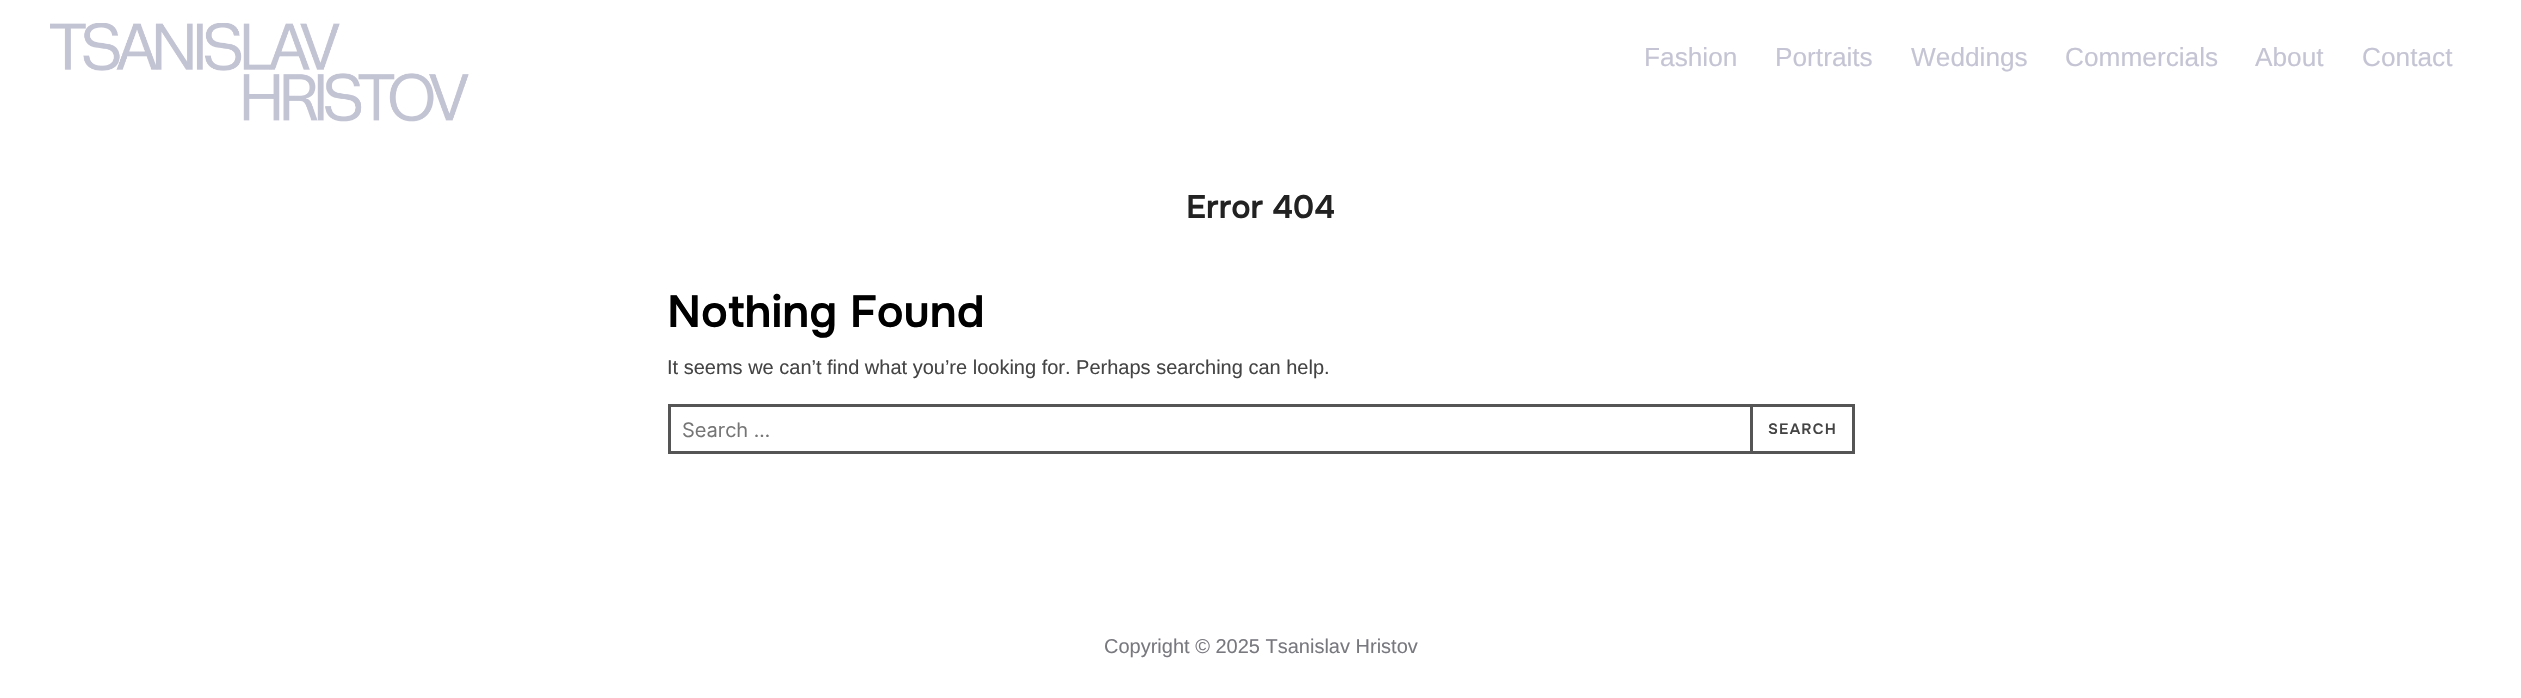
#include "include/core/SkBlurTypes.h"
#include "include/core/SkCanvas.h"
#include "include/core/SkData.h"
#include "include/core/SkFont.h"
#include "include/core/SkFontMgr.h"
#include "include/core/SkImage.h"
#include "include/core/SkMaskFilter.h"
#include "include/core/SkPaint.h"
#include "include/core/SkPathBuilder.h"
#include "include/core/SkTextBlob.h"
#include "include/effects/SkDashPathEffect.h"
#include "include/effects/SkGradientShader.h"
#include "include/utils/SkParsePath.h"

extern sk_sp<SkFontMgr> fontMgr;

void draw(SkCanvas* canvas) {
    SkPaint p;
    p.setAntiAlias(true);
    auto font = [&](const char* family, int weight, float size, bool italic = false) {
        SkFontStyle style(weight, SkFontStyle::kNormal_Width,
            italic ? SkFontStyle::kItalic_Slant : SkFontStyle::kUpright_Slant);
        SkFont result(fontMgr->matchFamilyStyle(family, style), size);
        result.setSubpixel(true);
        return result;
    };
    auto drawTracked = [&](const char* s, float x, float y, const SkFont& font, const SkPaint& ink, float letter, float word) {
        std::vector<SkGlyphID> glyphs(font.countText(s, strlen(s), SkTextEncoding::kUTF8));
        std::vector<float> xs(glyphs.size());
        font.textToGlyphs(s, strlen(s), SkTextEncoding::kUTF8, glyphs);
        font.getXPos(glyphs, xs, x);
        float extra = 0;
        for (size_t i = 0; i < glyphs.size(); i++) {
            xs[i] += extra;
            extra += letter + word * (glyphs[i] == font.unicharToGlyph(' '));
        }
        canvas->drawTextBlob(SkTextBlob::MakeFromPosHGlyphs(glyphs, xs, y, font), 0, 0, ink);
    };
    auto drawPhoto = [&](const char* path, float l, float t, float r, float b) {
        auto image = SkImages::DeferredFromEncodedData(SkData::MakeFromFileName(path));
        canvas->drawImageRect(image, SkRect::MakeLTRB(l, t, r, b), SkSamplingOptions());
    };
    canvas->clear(0xFFFFFFFF);
    drawPhoto("media/1.png", 50, 23, 469, 122);
    auto font1 = font("Liberation Sans", 400, 26.25f);
    p.setColor(0xFFC4C4D4);
    {
        const struct { const char* s; float x, y; } items[] = {
            {"Fashion", 1644, 66},
            {"Portraits", 1775, 66},
            {"Weddings", 1911, 66},
            {"Commercials", 2065, 66},
            {"About", 2255, 66},
            {"Contact", 2362, 66},
        };
        for (auto [s, x, y] : items) {
            canvas->drawString(s, x, y, font1, p);
        }
    }
    auto font2 = font("Onest", 600, 32.5f);
    p.setColor(0xFF222222);
    canvas->drawString("Error 404", 1186, 218, font2, p);
    auto font3 = font("Onest", 600, 45);
    p.setColor(0xFF000000);
    canvas->drawString("Nothing Found", 667, 327, font3, p);
    auto font4 = font("Liberation Sans", 400, 20);
    p.setColor(0xFF444444);
    canvas->drawString("It seems we can’t find what you’re looking for. Perhaps searching can help.", 667, 374, font4, p);
    p.setStyle(SkPaint::kStroke_Style);
    p.setStrokeWidth(3);
    p.setColor(0xFF565555);
    canvas->drawRect(SkRect::MakeLTRB(669.5f, 405.5f, 1853.5f, 452.5f), p);
    auto font5 = font("Inter", 400, 20);
    p.setStyle(SkPaint::kFill_Style);
    p.setColor(0xFF757575);
    canvas->drawString("Search …", 682, 437, font5, p);
    p.setStyle(SkPaint::kStroke_Style);
    p.setColor(0xFF565555);
    canvas->drawRect(SkRect::MakeLTRB(1751.5f, 405.5f, 1853.5f, 452.5f), p);
    auto font6 = font("Onest", 600, 15);
    p.setStyle(SkPaint::kFill_Style);
    p.setColor(0xFF444444);
    drawTracked("SEARCH", 1768, 434, font6, p, 1.25f, 0);
    p.setColor(0xFF78787F);
    canvas->drawString("Copyright © 2025 Tsanislav Hristov", 1104, 653, font4, p);
}
